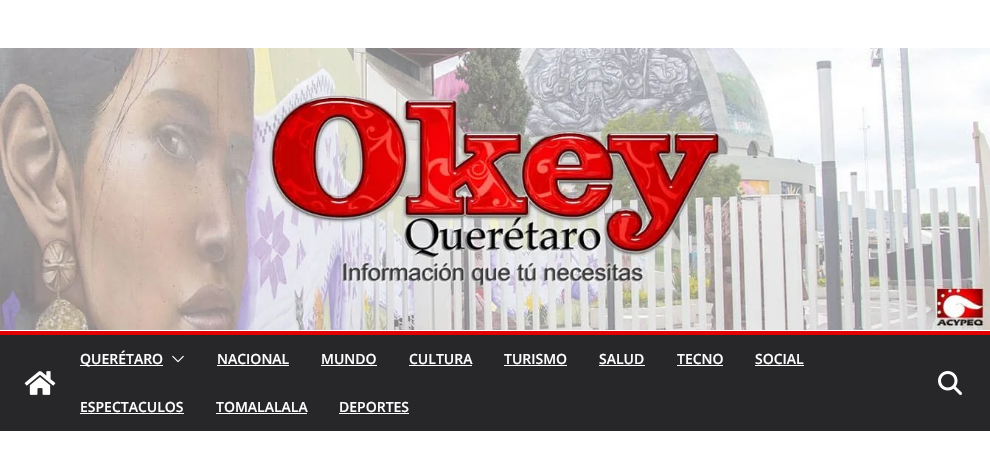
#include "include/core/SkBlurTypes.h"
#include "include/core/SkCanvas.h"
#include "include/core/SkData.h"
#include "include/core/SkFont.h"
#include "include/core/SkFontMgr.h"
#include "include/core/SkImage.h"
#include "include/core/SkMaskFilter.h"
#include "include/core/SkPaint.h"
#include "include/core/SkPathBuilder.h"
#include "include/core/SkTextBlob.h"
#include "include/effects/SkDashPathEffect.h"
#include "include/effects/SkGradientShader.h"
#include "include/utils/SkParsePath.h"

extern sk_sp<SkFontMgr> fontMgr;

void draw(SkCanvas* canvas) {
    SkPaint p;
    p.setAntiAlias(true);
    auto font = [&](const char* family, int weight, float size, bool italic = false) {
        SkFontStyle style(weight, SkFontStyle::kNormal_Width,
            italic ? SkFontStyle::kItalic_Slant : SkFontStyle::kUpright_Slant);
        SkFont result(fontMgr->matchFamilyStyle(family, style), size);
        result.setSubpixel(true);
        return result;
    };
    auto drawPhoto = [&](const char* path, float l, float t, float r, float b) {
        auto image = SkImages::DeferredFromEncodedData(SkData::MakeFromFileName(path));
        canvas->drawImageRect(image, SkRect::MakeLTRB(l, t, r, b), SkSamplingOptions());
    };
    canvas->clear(0xFFFFFFFF);
    drawPhoto("media/1.png", 0, 48, 990, 330);
    p.setColor(0xFF27272A);
    canvas->drawRect(SkRect::MakeLTRB(0, 335, 990, 431), p);
    p.setColor(0xFFE20000);
    canvas->drawRect(SkRect::MakeLTRB(0, 331, 990, 335), p);
    drawPhoto("media/2.png", 24, 371, 56, 395);
    p.setColor(0xFFFFFFFF);
    canvas->drawRect(SkRect::MakeLTRB(80, 365, 163, 366), p);
    auto font1 = font("Open Sans", 600, 14);
    canvas->drawString("QUERÉTARO", 80, 364, font1, p);
    drawPhoto("media/3.png", 172, 355, 184, 363);
    canvas->drawString("NACIONAL", 217, 364, font1, p);
    canvas->drawRect(SkRect::MakeLTRB(217, 365, 289, 366), p);
    canvas->drawString("MUNDO", 321, 364, font1, p);
    canvas->drawRect(SkRect::MakeLTRB(321, 365, 377, 366), p);
    canvas->drawString("CULTURA", 409, 364, font1, p);
    canvas->drawRect(SkRect::MakeLTRB(409, 365, 472, 366), p);
    canvas->drawString("TURISMO", 504, 364, font1, p);
    canvas->drawRect(SkRect::MakeLTRB(504, 365, 567, 366), p);
    canvas->drawString("SALUD", 599, 364, font1, p);
    canvas->drawRect(SkRect::MakeLTRB(599, 365, 645, 366), p);
    canvas->drawString("TECNO", 677, 364, font1, p);
    canvas->drawRect(SkRect::MakeLTRB(677, 365, 723, 366), p);
    canvas->drawString("SOCIAL", 755, 364, font1, p);
    canvas->drawRect(SkRect::MakeLTRB(755, 365, 804, 366), p);
    canvas->drawString("ESPECTACULOS", 80, 412, font1, p);
    canvas->drawRect(SkRect::MakeLTRB(80, 413, 184, 414), p);
    canvas->drawString("TOMALALALA", 216, 412, font1, p);
    canvas->drawRect(SkRect::MakeLTRB(216, 413, 307, 414), p);
    canvas->drawString("DEPORTES", 339, 412, font1, p);
    canvas->drawRect(SkRect::MakeLTRB(339, 413, 409, 414), p);
    drawPhoto("media/4.png", 938, 371, 962, 395);
}
